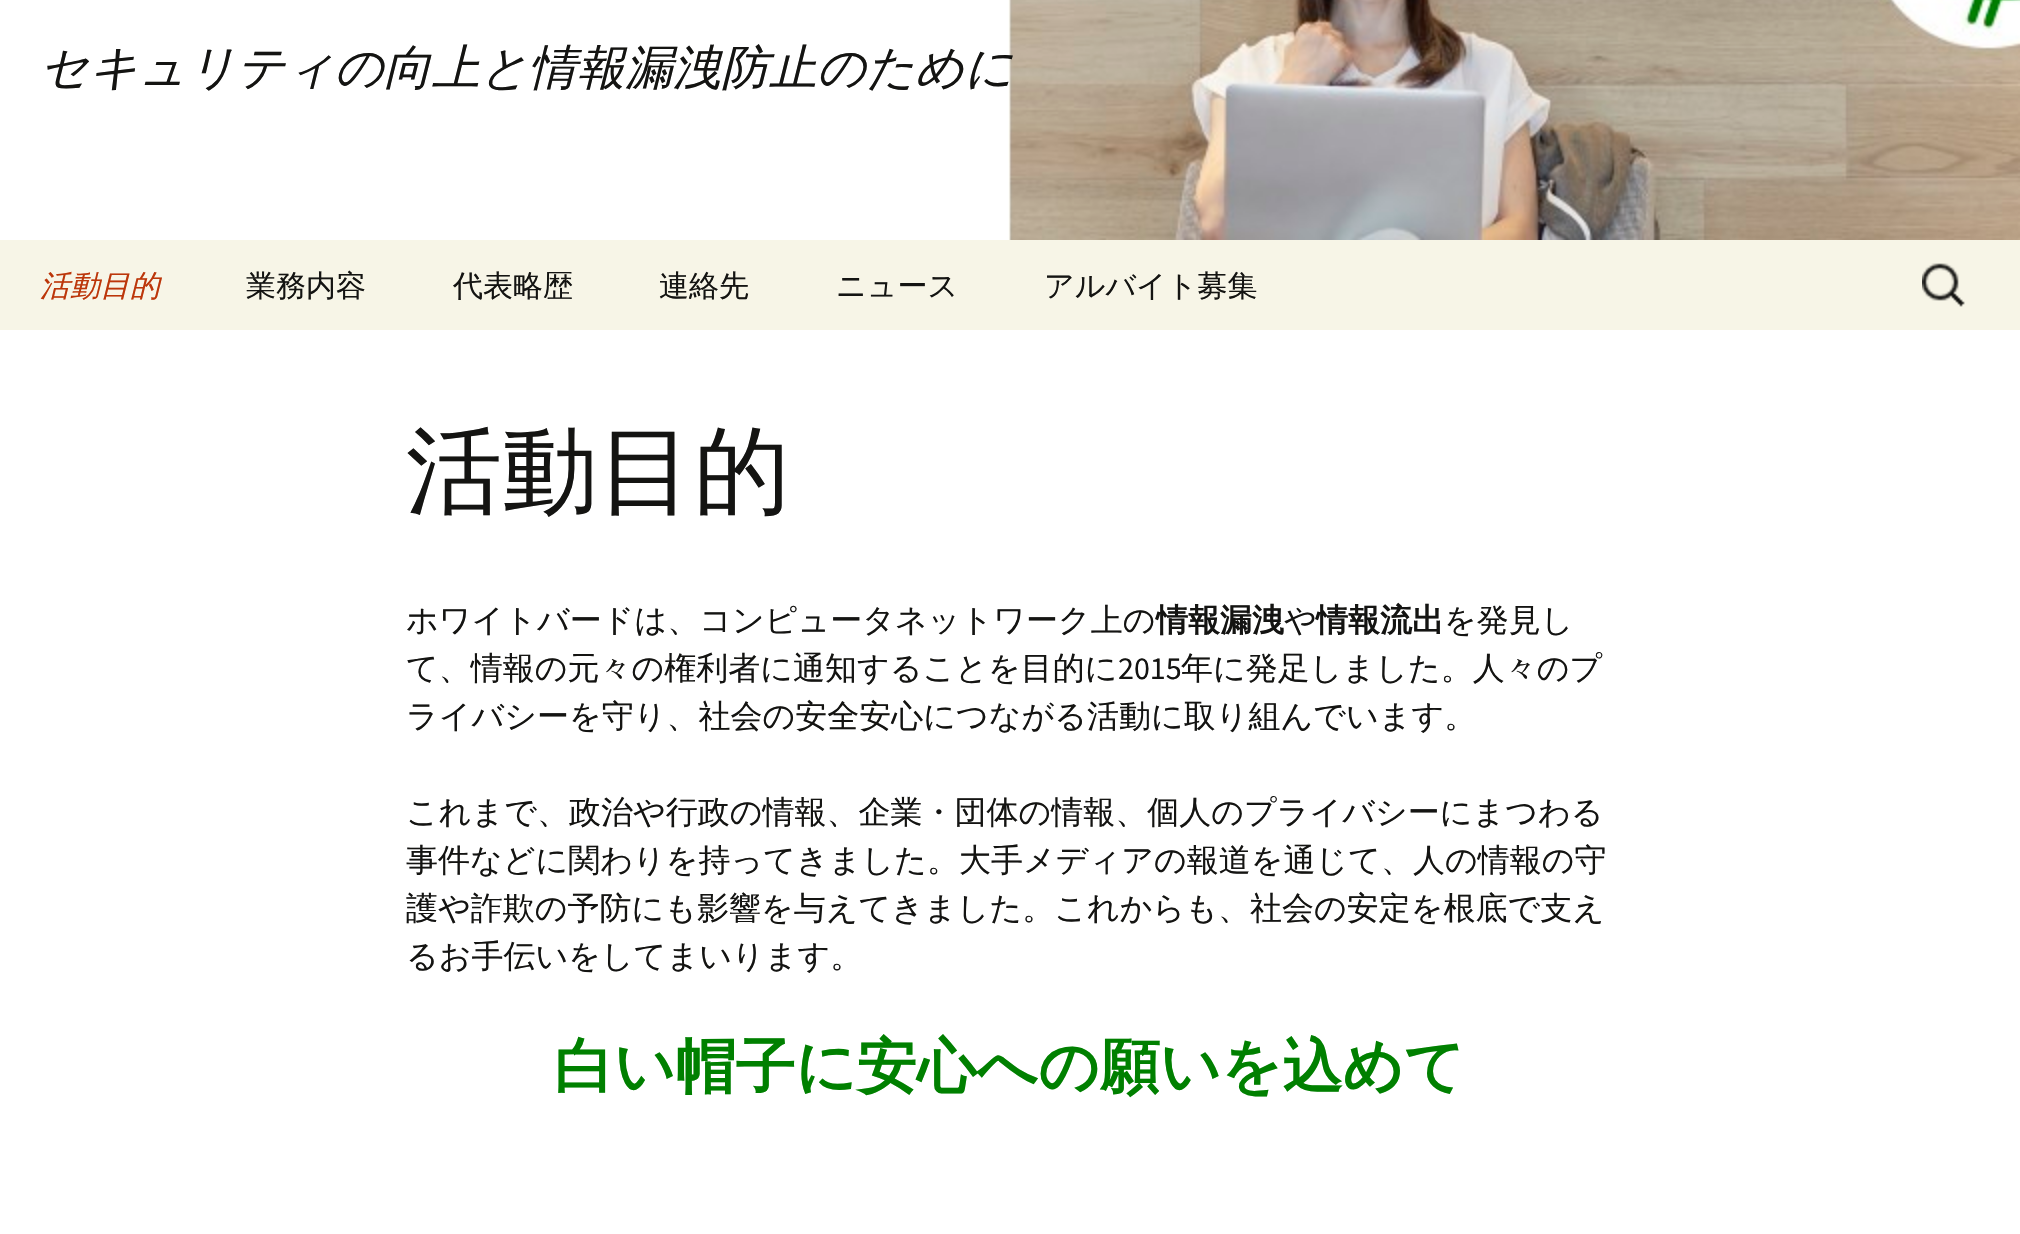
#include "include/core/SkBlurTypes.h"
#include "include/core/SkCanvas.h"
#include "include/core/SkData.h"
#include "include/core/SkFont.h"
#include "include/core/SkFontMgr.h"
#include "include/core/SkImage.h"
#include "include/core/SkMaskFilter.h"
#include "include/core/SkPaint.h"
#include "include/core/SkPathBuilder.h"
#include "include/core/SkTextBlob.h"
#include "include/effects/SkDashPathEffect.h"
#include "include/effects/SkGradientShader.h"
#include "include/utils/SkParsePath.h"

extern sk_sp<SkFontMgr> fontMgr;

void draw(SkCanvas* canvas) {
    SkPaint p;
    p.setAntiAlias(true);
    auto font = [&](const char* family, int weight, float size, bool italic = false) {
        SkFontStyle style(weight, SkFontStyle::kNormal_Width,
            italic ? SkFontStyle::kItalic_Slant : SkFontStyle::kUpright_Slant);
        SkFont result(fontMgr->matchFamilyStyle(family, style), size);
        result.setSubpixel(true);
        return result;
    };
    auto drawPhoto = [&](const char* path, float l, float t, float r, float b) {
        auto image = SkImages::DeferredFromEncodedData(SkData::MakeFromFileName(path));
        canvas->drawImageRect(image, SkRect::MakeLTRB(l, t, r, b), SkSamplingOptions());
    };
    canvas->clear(0xFFFFFFFF);
    drawPhoto("media/1.png", 1008, 0, 2020, 240);
    auto font1 = font("WenQuanYi Zen Hei", 500, 48, true);
    p.setColor(0xFF141412);
    canvas->drawString("セキュリティの向上と情報漏洩防止のために", 40, 84, font1, p);
    p.setColor(0xFFF7F5E7);
    canvas->drawRect(SkRect::MakeLTRB(0, 240, 2020, 330), p);
    auto font2 = font("WenQuanYi Zen Hei", 500, 30, true);
    p.setColor(0xFFBC360A);
    canvas->drawString("活動目的", 40, 296, font2, p);
    auto font3 = font("WenQuanYi Zen Hei", 500, 30);
    p.setColor(0xFF141412);
    {
        const struct { const char* s; float x, y; } items[] = {
            {"業務内容", 246, 296},
            {"代表略歴", 453, 296},
            {"連絡先", 659, 296},
            {"ニュース", 836, 296},
            {"アルバイト募集", 1044, 296},
        };
        for (auto [s, x, y] : items) {
            canvas->drawString(s, x, y, font3, p);
        }
    }
    drawPhoto("media/2.png", 1922, 263, 1965, 307);
    auto font4 = font("WenQuanYi Zen Hei", 500, 96);
    canvas->drawString("活動目的", 406, 504, font4, p);
    auto font5 = font("WenQuanYi Zen Hei", 500, 32);
    canvas->drawString("ホワイトバードは、コンピュータネットワーク上の", 406, 631, font5, p);
    auto font6 = font("WenQuanYi Zen Hei", 700, 32);
    canvas->drawString("情報漏洩", 1156, 631, font6, p);
    canvas->drawString("や", 1284, 631, font5, p);
    canvas->drawString("情報流出", 1316, 631, font6, p);
    canvas->drawString("を発見し", 1444, 631, font5, p);
    canvas->drawString("て、情報の元々の権利者に通知することを目的に", 406, 679, font5, p);
    auto font7 = font("Source Sans Pro", 400, 32);
    canvas->drawString("2015", 1118, 679, font7, p);
    {
        const struct { const char* s; float x, y; } items[] = {
            {"年に発足しました。人々のプ", 1181, 679},
            {"ライバシーを守り、社会の安全安心につながる活動に取り組んでいます。", 406, 727},
            {"これまで、政治や行政の情報、企業・団体の情報、個人のプライバシーにまつわる", 406, 823},
            {"事件などに関わりを持ってきました。大手メディアの報道を通じて、人の情報の守", 406, 871},
            {"護や詐欺の予防にも影響を与えてきました。これからも、社会の安定を根底で支え", 406, 919},
            {"るお手伝いをしてまいります。", 406, 967},
        };
        for (auto [s, x, y] : items) {
            canvas->drawString(s, x, y, font5, p);
        }
    }
    auto font8 = font("WenQuanYi Zen Hei", 700, 60);
    p.setColor(0xFF008000);
    canvas->drawString("白い帽子に安心への願いを込めて", 554, 1087, font8, p);
}
